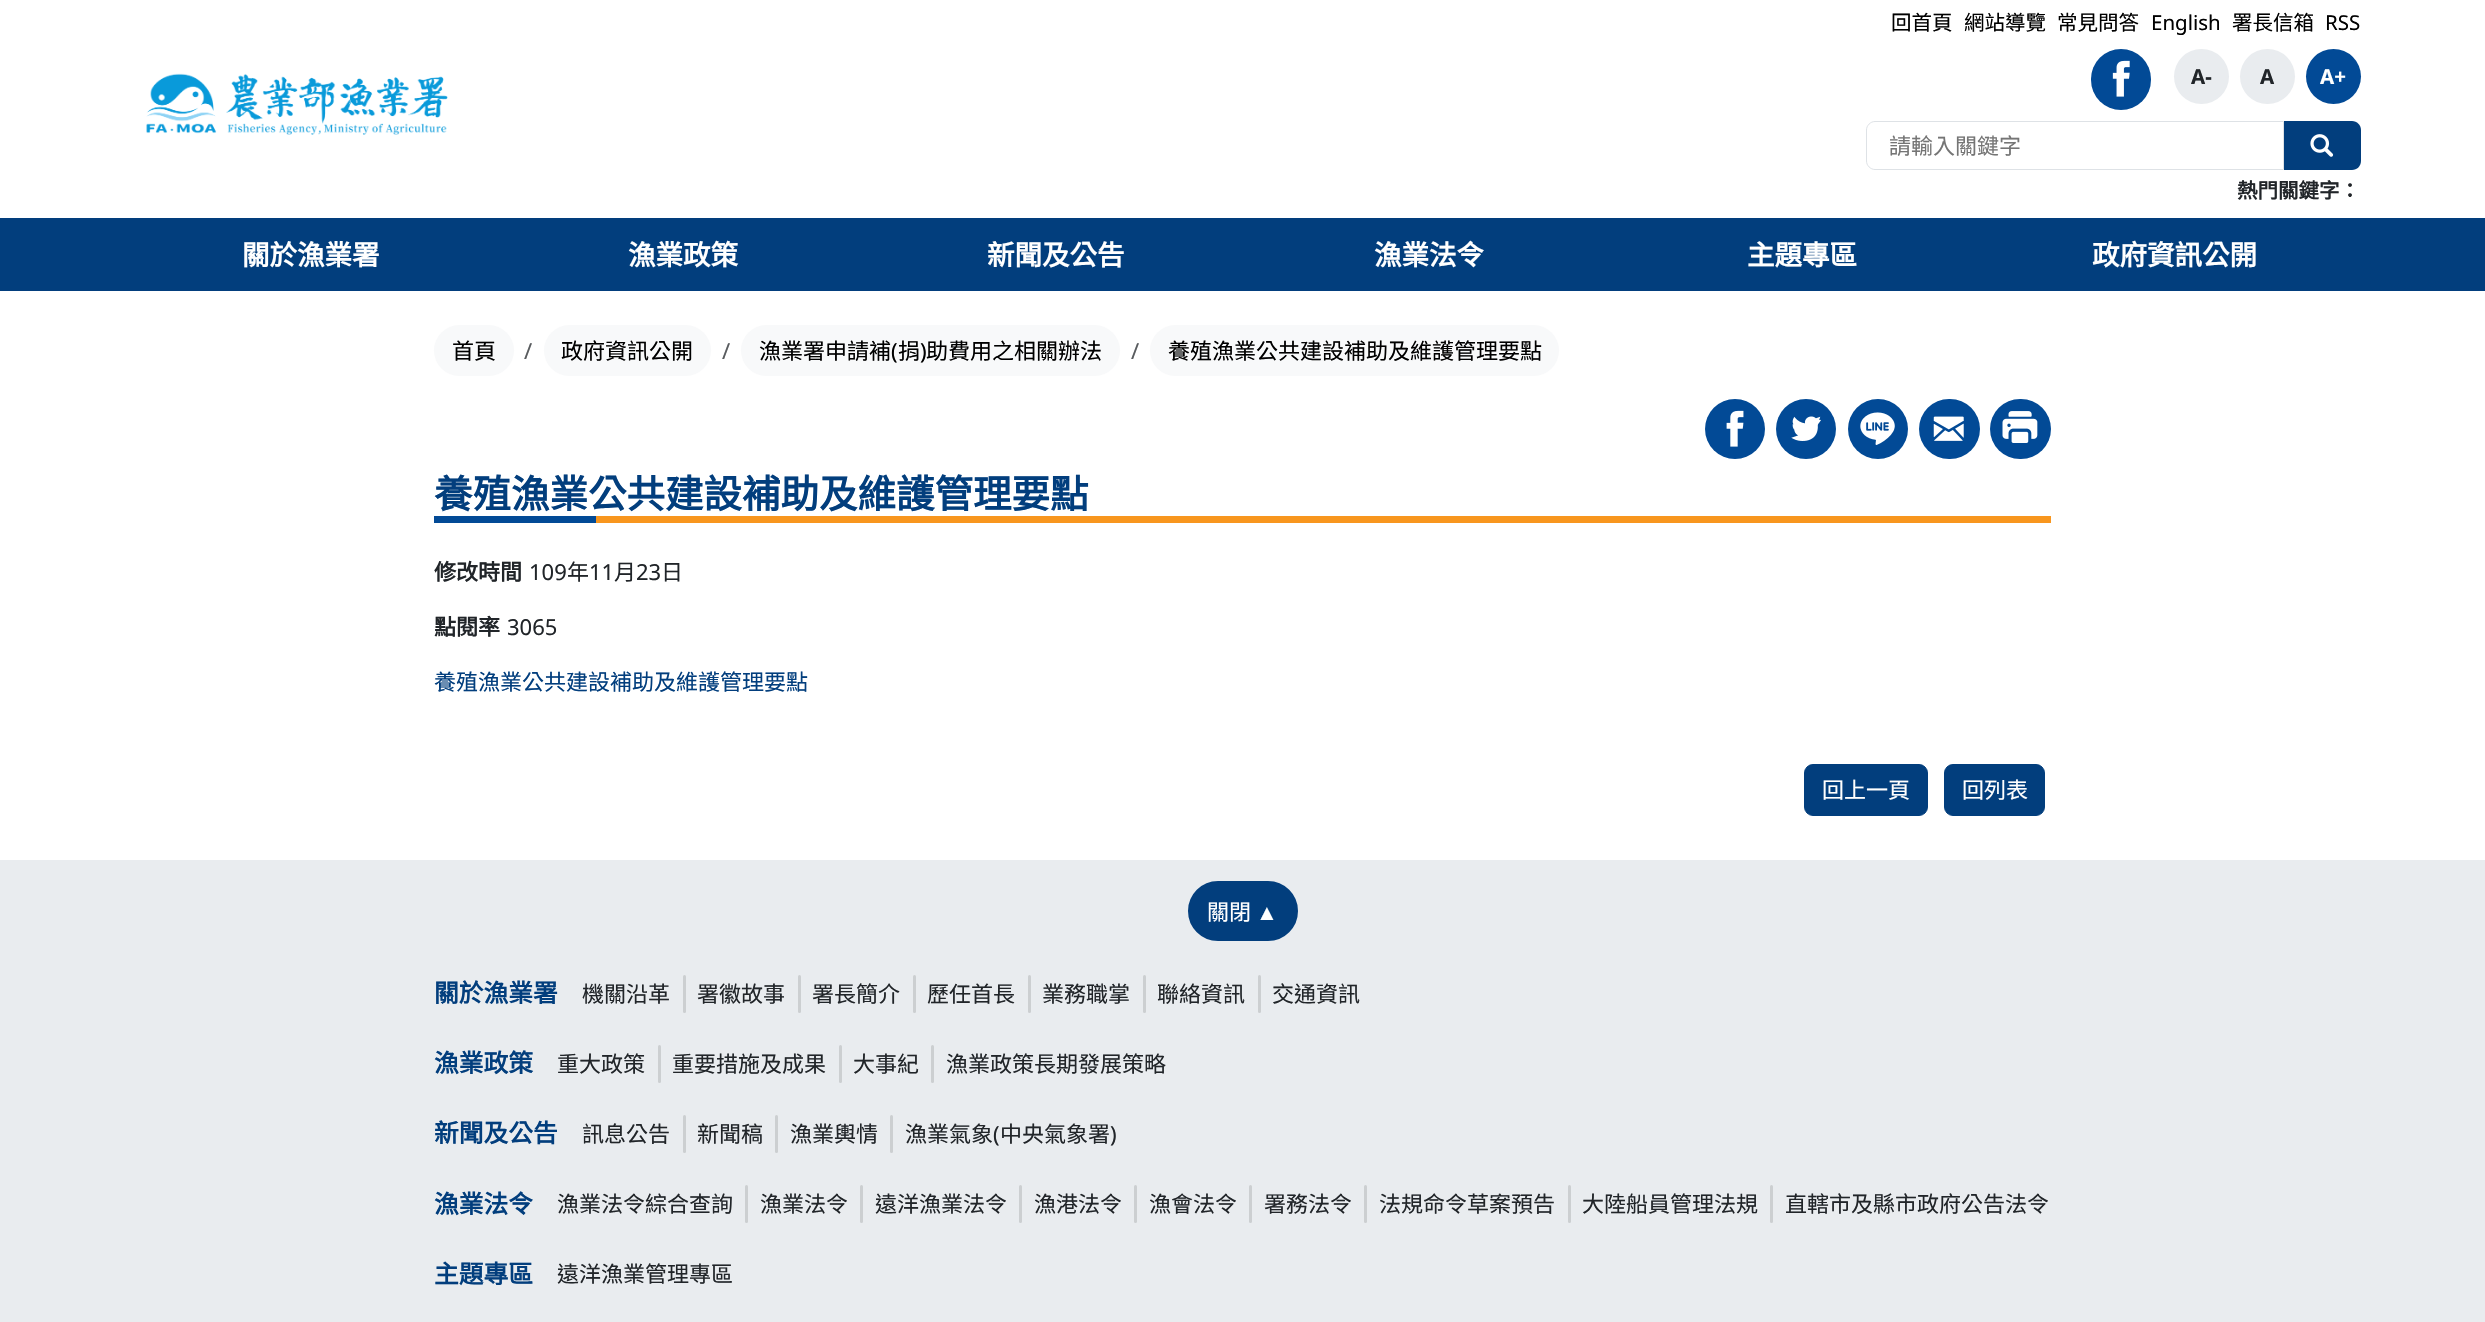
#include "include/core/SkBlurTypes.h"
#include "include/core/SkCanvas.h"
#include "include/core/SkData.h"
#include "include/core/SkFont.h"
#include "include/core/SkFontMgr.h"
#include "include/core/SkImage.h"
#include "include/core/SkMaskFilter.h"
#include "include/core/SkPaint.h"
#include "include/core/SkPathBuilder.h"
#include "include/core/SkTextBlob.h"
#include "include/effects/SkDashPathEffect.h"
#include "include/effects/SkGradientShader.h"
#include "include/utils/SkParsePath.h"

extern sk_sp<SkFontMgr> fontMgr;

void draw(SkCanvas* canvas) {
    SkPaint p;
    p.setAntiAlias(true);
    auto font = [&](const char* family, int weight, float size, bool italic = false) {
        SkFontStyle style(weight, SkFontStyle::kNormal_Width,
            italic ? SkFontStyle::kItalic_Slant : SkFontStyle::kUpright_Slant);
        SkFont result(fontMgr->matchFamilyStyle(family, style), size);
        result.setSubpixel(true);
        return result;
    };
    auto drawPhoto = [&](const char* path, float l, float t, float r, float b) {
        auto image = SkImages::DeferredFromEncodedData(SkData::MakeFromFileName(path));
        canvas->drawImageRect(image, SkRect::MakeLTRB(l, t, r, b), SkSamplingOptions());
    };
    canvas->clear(0xFFFFFFFF);
    drawPhoto("media/1.png", 146, 73, 448, 135);
    auto font1 = font("Noto Sans CJK TC", 400, 20.5f);
    p.setColor(0xFF000000);
    {
        const struct { const char* s; float x, y; } items[] = {
            {"回首頁", 1891, 30},
            {"網站導覽", 1964, 30},
            {"常見問答", 2057, 30},
        };
        for (auto [s, x, y] : items) {
            canvas->drawString(s, x, y, font1, p);
        }
    }
    auto font2 = font("Noto Sans", 400, 20.5f);
    canvas->drawString("English", 2151, 30, font2, p);
    canvas->drawString("署長信箱", 2232, 30, font1, p);
    canvas->drawString("RSS", 2325, 30, font2, p);
    p.setColor(0xFF024A96);
    canvas->drawRoundRect(SkRect::MakeLTRB(2091, 49, 2151, 110), 30, 30, p);
    drawPhoto("media/2.png", 2112, 60, 2130, 97);
    p.setColor(0xFFE9ECEF);
    canvas->drawCircle(2201.5f, 76.5f, 27.5f, p);
    auto font3 = font("Noto Sans", 700, 20.5f);
    p.setColor(0xFF212529);
    canvas->drawString("A-", 2191, 84, font3, p);
    p.setColor(0xFFE9ECEF);
    canvas->drawCircle(2267.5f, 76.5f, 27.5f, p);
    p.setColor(0xFF212529);
    canvas->drawString("A", 2260, 84, font3, p);
    p.setColor(0xFF024A96);
    canvas->drawCircle(2333.5f, 76.5f, 27.5f, p);
    p.setColor(0xFFFFFFFF);
    canvas->drawString("A+", 2320, 84, font3, p);
    p.setStyle(SkPaint::kStroke_Style);
    p.setStrokeWidth(1);
    p.setColor(0xFFDEE2E6);
    canvas->drawPath(SkPathBuilder().moveTo(1875, 121.5f).lineTo(2283.5f, 121.5f).lineTo(2283.5f, 169.5f).lineTo(1875, 169.5f).cubicTo(1870.5f, 169.5f, 1866.5f, 165.5f, 1866.5f, 161).lineTo(1866.5f, 130).cubicTo(1866.5f, 125.5f, 1870.5f, 121.5f, 1875, 121.5f).close().detach(), p);
    auto font4 = font("Noto Sans CJK TC", 400, 22);
    p.setStyle(SkPaint::kFill_Style);
    p.setColor(0xFF757575);
    canvas->drawString("請輸入關鍵字", 1889, 154, font4, p);
    p.setColor(0xFF023E7D);
    canvas->drawPath(SkPathBuilder().moveTo(2284, 121).lineTo(2352, 121).cubicTo(2357, 121, 2361, 125, 2361, 130).lineTo(2361, 161).cubicTo(2361, 166, 2357, 170, 2352, 170).lineTo(2284, 170).close().detach(), p);
    drawPhoto("media/3.png", 2310, 134, 2334, 157);
    auto font5 = font("Noto Sans CJK TC", 700, 20.5f);
    p.setColor(0xFF212529);
    canvas->drawString("熱門關鍵字：", 2237, 198, font5, p);
    p.setColor(0xFF023E7D);
    canvas->drawRect(SkRect::MakeLTRB(0, 218, 2485, 291), p);
    auto font6 = font("Noto Sans CJK TC", 700, 27.5f);
    p.setColor(0xFFFFFFFF);
    {
        const struct { const char* s; float x, y; } items[] = {
            {"關於漁業署", 242, 265},
            {"漁業政策", 628, 265},
            {"新聞及公告", 987, 265},
            {"漁業法令", 1374, 265},
            {"主題專區", 1747, 265},
            {"政府資訊公開", 2092, 265},
        };
        for (auto [s, x, y] : items) {
            canvas->drawString(s, x, y, font6, p);
        }
    }
    p.setColor(0xFFF8F9FA);
    canvas->drawRoundRect(SkRect::MakeLTRB(434, 325, 514, 376), 25.5f, 25.5f, p);
    p.setColor(0xFF000000);
    canvas->drawString("首頁", 452, 359, font4, p);
    auto font7 = font("Noto Sans", 400, 22);
    p.setColor(0xFF595C5F);
    canvas->drawString("/", 524, 359, font7, p);
    p.setColor(0xFFF8F9FA);
    canvas->drawRoundRect(SkRect::MakeLTRB(544, 325, 711, 376), 25.5f, 25.5f, p);
    p.setColor(0xFF000000);
    canvas->drawString("政府資訊公開", 561, 359, font4, p);
    p.setColor(0xFF595C5F);
    canvas->drawString("/", 722, 359, font7, p);
    p.setColor(0xFFF8F9FA);
    canvas->drawRoundRect(SkRect::MakeLTRB(741, 325, 1120, 376), 25.5f, 25.5f, p);
    p.setColor(0xFF000000);
    canvas->drawString("漁業署申請補", 759, 359, font4, p);
    canvas->drawString("(", 891, 359, font7, p);
    canvas->drawString("捐", 898, 359, font4, p);
    canvas->drawString(")", 920, 359, font7, p);
    canvas->drawString("助費用之相關辦法", 926, 359, font4, p);
    p.setColor(0xFF595C5F);
    canvas->drawString("/", 1131, 359, font7, p);
    p.setColor(0xFFF8F9FA);
    canvas->drawRoundRect(SkRect::MakeLTRB(1150, 325, 1559, 376), 25.5f, 25.5f, p);
    p.setColor(0xFF000000);
    canvas->drawString("養殖漁業公共建設補助及維護管理要點", 1168, 359, font4, p);
    p.setColor(0xFF024A96);
    canvas->drawCircle(1735, 429, 30, p);
    drawPhoto("media/4.png", 1726, 410, 1744, 447);
    canvas->drawCircle(1806, 429, 30, p);
    drawPhoto("media/5.png", 1791, 416, 1821, 441);
    canvas->drawCircle(1878, 429, 30, p);
    drawPhoto("media/6.png", 1860, 412, 1895, 445);
    canvas->drawRoundRect(SkRect::MakeLTRB(1919, 399, 1980, 459), 30, 30, p);
    drawPhoto("media/7.png", 1933, 416, 1964, 441);
    canvas->drawRoundRect(SkRect::MakeLTRB(1990, 399, 2051, 459), 30, 30, p);
    drawPhoto("media/8.png", 2002, 411, 2038, 443);
    auto font8 = font("Noto Sans CJK TC", 700, 38.5f);
    p.setColor(0xFF023E7D);
    canvas->drawString("養殖漁業公共建設補助及維護管理要點", 434, 508, font8, p);
    p.setColor(0xFF024A96);
    canvas->drawRect(SkRect::MakeLTRB(434, 516, 596, 523), p);
    p.setColor(0xFFF8961E);
    canvas->drawRect(SkRect::MakeLTRB(596, 516, 2051, 523), p);
    auto font9 = font("Noto Sans CJK TC", 700, 22);
    p.setColor(0xFF212529);
    canvas->drawString("修改時間", 434, 580, font9, p);
    canvas->drawString("109", 529, 580, font7, p);
    canvas->drawString("年", 567, 580, font4, p);
    canvas->drawString("11", 589, 580, font7, p);
    canvas->drawString("月", 614, 580, font4, p);
    canvas->drawString("23", 636, 580, font7, p);
    canvas->drawString("日", 661, 580, font4, p);
    canvas->drawString("點閱率", 434, 635, font9, p);
    canvas->drawString("3065", 507, 635, font7, p);
    p.setColor(0xFF023E7D);
    canvas->drawString("養殖漁業公共建設補助及維護管理要點", 434, 690, font4, p);
    canvas->drawRoundRect(SkRect::MakeLTRB(1804.5f, 764.5f, 1927.5f, 815.5f), 8.5f, 8.5f, p);
    p.setStyle(SkPaint::kStroke_Style);
    canvas->drawRoundRect(SkRect::MakeLTRB(1804.5f, 764.5f, 1927.5f, 815.5f), 8.5f, 8.5f, p);
    p.setStyle(SkPaint::kFill_Style);
    p.setColor(0xFFFFFFFF);
    canvas->drawString("回上一頁", 1822, 798, font4, p);
    p.setColor(0xFF023E7D);
    canvas->drawRoundRect(SkRect::MakeLTRB(1944.5f, 764.5f, 2044.5f, 815.5f), 8.5f, 8.5f, p);
    p.setStyle(SkPaint::kStroke_Style);
    canvas->drawRoundRect(SkRect::MakeLTRB(1944.5f, 764.5f, 2044.5f, 815.5f), 8.5f, 8.5f, p);
    p.setStyle(SkPaint::kFill_Style);
    p.setColor(0xFFFFFFFF);
    canvas->drawString("回列表", 1962, 798, font4, p);
    p.setColor(0xFFE9ECEF);
    canvas->drawRect(SkRect::MakeLTRB(0, 860, 2485, 1322), p);
    p.setColor(0xFF023E7D);
    canvas->drawRoundRect(SkRect::MakeLTRB(1189.5f, 882.5f, 1296.5f, 939.5f), 28.5f, 28.5f, p);
    p.setStyle(SkPaint::kStroke_Style);
    p.setStrokeWidth(3);
    canvas->drawRoundRect(SkRect::MakeLTRB(1189.5f, 882.5f, 1296.5f, 939.5f), 28.5f, 28.5f, p);
    p.setStyle(SkPaint::kFill_Style);
    p.setColor(0xFFFFFFFF);
    canvas->drawString("關閉", 1207, 920, font4, p);
    auto font10 = font("Liberation Sans", 400, 22);
    canvas->drawString("▲", 1256, 920, font10, p);
    auto font11 = font("Noto Sans CJK TC", 700, 24.75f);
    p.setColor(0xFF023E7D);
    canvas->drawString("關於漁業署", 434, 1002, font11, p);
    p.setColor(0xFF212529);
    canvas->drawString("機關沿革", 582, 1002, font4, p);
    p.setColor(0xFFCCCFD1);
    canvas->drawRoundRect(SkRect::MakeLTRB(683, 975, 686, 1013), 1.5f, 1.5f, p);
    p.setColor(0xFF212529);
    canvas->drawString("署徽故事", 697, 1002, font4, p);
    p.setColor(0xFFCCCFD1);
    canvas->drawRoundRect(SkRect::MakeLTRB(798, 975, 801, 1013), 1.5f, 1.5f, p);
    p.setColor(0xFF212529);
    canvas->drawString("署長簡介", 812, 1002, font4, p);
    p.setColor(0xFFCCCFD1);
    canvas->drawRoundRect(SkRect::MakeLTRB(913, 975, 916, 1013), 1.5f, 1.5f, p);
    p.setColor(0xFF212529);
    canvas->drawString("歷任首長", 927, 1002, font4, p);
    p.setColor(0xFFCCCFD1);
    canvas->drawRoundRect(SkRect::MakeLTRB(1028, 975, 1031, 1013), 1.5f, 1.5f, p);
    p.setColor(0xFF212529);
    canvas->drawString("業務職掌", 1042, 1002, font4, p);
    p.setColor(0xFFCCCFD1);
    canvas->drawRoundRect(SkRect::MakeLTRB(1143, 975, 1146, 1013), 1.5f, 1.5f, p);
    p.setColor(0xFF212529);
    canvas->drawString("聯絡資訊", 1157, 1002, font4, p);
    p.setColor(0xFFCCCFD1);
    canvas->drawRoundRect(SkRect::MakeLTRB(1258, 975, 1261, 1013), 1.5f, 1.5f, p);
    p.setColor(0xFF212529);
    canvas->drawString("交通資訊", 1272, 1002, font4, p);
    p.setColor(0xFF023E7D);
    canvas->drawString("漁業政策", 434, 1072, font11, p);
    p.setColor(0xFF212529);
    canvas->drawString("重大政策", 557, 1072, font4, p);
    p.setColor(0xFFCCCFD1);
    canvas->drawRoundRect(SkRect::MakeLTRB(658, 1045, 661, 1083), 1.5f, 1.5f, p);
    p.setColor(0xFF212529);
    canvas->drawString("重要措施及成果", 672, 1072, font4, p);
    p.setColor(0xFFCCCFD1);
    canvas->drawRoundRect(SkRect::MakeLTRB(839, 1045, 842, 1083), 1.5f, 1.5f, p);
    p.setColor(0xFF212529);
    canvas->drawString("大事紀", 853, 1072, font4, p);
    p.setColor(0xFFCCCFD1);
    canvas->drawRoundRect(SkRect::MakeLTRB(931, 1045, 934, 1083), 1.5f, 1.5f, p);
    p.setColor(0xFF212529);
    canvas->drawString("漁業政策長期發展策略", 946, 1072, font4, p);
    p.setColor(0xFF023E7D);
    canvas->drawString("新聞及公告", 434, 1142, font11, p);
    p.setColor(0xFF212529);
    canvas->drawString("訊息公告", 582, 1142, font4, p);
    p.setColor(0xFFCCCFD1);
    canvas->drawRoundRect(SkRect::MakeLTRB(683, 1115, 686, 1153), 1.5f, 1.5f, p);
    p.setColor(0xFF212529);
    canvas->drawString("新聞稿", 697, 1142, font4, p);
    p.setColor(0xFFCCCFD1);
    canvas->drawRoundRect(SkRect::MakeLTRB(775, 1115, 778, 1153), 1.5f, 1.5f, p);
    p.setColor(0xFF212529);
    canvas->drawString("漁業輿情", 790, 1142, font4, p);
    p.setColor(0xFFCCCFD1);
    canvas->drawRoundRect(SkRect::MakeLTRB(890, 1115, 893, 1153), 1.5f, 1.5f, p);
    p.setColor(0xFF212529);
    canvas->drawString("漁業氣象", 905, 1142, font4, p);
    canvas->drawString("(", 993, 1142, font7, p);
    canvas->drawString("中央氣象署", 1000, 1142, font4, p);
    canvas->drawString(")", 1110, 1142, font7, p);
    p.setColor(0xFF023E7D);
    canvas->drawString("漁業法令", 434, 1213, font11, p);
    p.setColor(0xFF212529);
    canvas->drawString("漁業法令綜合查詢", 557, 1212, font4, p);
    p.setColor(0xFFCCCFD1);
    canvas->drawRoundRect(SkRect::MakeLTRB(745, 1185, 748, 1223), 1.5f, 1.5f, p);
    p.setColor(0xFF212529);
    canvas->drawString("漁業法令", 760, 1212, font4, p);
    p.setColor(0xFFCCCFD1);
    canvas->drawRoundRect(SkRect::MakeLTRB(860, 1185, 863, 1223), 1.5f, 1.5f, p);
    p.setColor(0xFF212529);
    canvas->drawString("遠洋漁業法令", 875, 1212, font4, p);
    p.setColor(0xFFCCCFD1);
    canvas->drawRoundRect(SkRect::MakeLTRB(1019, 1185, 1022, 1223), 1.5f, 1.5f, p);
    p.setColor(0xFF212529);
    canvas->drawString("漁港法令", 1034, 1212, font4, p);
    p.setColor(0xFFCCCFD1);
    canvas->drawRoundRect(SkRect::MakeLTRB(1134, 1185, 1137, 1223), 1.5f, 1.5f, p);
    p.setColor(0xFF212529);
    canvas->drawString("漁會法令", 1149, 1212, font4, p);
    p.setColor(0xFFCCCFD1);
    canvas->drawRoundRect(SkRect::MakeLTRB(1249, 1185, 1252, 1223), 1.5f, 1.5f, p);
    p.setColor(0xFF212529);
    canvas->drawString("署務法令", 1264, 1212, font4, p);
    p.setColor(0xFFCCCFD1);
    canvas->drawRoundRect(SkRect::MakeLTRB(1364, 1185, 1367, 1223), 1.5f, 1.5f, p);
    p.setColor(0xFF212529);
    canvas->drawString("法規命令草案預告", 1379, 1212, font4, p);
    p.setColor(0xFFCCCFD1);
    canvas->drawRoundRect(SkRect::MakeLTRB(1568, 1185, 1571, 1223), 1.5f, 1.5f, p);
    p.setColor(0xFF212529);
    canvas->drawString("大陸船員管理法規", 1582, 1212, font4, p);
    p.setColor(0xFFCCCFD1);
    canvas->drawRoundRect(SkRect::MakeLTRB(1770, 1185, 1773, 1223), 1.5f, 1.5f, p);
    p.setColor(0xFF212529);
    canvas->drawString("直轄市及縣市政府公告法令", 1785, 1212, font4, p);
    p.setColor(0xFF023E7D);
    canvas->drawString("主題專區", 434, 1283, font11, p);
    p.setColor(0xFF212529);
    canvas->drawString("遠洋漁業管理專區", 557, 1282, font4, p);
}
